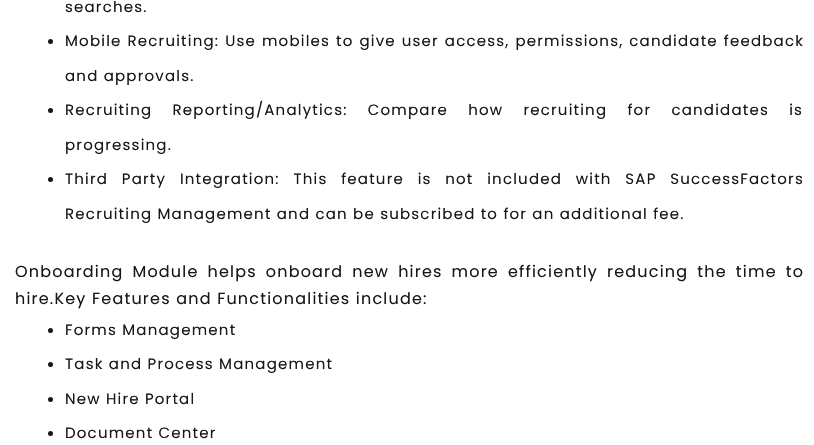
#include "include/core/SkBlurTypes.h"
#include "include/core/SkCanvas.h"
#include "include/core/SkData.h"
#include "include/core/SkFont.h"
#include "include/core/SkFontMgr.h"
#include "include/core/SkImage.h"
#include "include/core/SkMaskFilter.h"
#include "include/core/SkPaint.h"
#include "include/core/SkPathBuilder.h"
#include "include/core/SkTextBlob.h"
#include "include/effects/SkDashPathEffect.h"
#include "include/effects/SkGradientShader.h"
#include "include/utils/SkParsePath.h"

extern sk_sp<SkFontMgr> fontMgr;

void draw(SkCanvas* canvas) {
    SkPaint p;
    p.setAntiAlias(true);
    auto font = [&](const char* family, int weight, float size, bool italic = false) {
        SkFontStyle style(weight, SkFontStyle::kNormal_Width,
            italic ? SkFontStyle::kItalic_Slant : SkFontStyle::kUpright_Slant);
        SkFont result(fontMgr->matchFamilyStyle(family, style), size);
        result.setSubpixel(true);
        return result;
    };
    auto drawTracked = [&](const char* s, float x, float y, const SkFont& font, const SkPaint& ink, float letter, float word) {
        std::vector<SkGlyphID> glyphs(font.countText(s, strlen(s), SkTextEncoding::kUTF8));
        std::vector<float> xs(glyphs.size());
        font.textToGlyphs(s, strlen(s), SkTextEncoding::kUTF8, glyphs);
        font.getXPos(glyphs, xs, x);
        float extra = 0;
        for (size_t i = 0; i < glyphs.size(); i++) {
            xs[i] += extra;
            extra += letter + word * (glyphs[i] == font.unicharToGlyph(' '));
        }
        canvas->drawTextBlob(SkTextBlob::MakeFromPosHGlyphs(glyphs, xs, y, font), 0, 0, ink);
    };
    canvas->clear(0xFFFFFFFF);
    auto font1 = font("Poppins", 400, 15);
    p.setColor(0xFF1B1616);
    drawTracked("searches.", 65, 12, font1, p, 1.2f, 0);
    canvas->drawCircle(50.5f, 41.5f, 2.5f, p);
    drawTracked("Mobile Recruiting: Use mobiles to give user access, permissions, candidate feedback", 65, 46, font1, p, 1.2f, 0.75f);
    drawTracked("and approvals.", 65, 81, font1, p, 1.2f, 0);
    canvas->drawCircle(50.5f, 110.5f, 2.5f, p);
    drawTracked("Recruiting Reporting/Analytics: Compare how recruiting for candidates is", 65, 115, font1, p, 1.2f, 15);
    drawTracked("progressing.", 65, 150, font1, p, 1.2f, 0);
    canvas->drawCircle(50.5f, 179.5f, 2.5f, p);
    drawTracked("Third Party Integration: This feature is not included with SAP SuccessFactors", 65, 184, font1, p, 1.2f, 8.5f);
    drawTracked("Recruiting Management and can be subscribed to for an additional fee.", 65, 219, font1, p, 1.2f, 0);
    auto font2 = font("Poppins", 400, 16);
    drawTracked("Onboarding Module helps onboard new hires more efficiently reducing the time to", 15, 277, font2, p, 1.2f, 3.5f);
    drawTracked("hire.Key Features and Functionalities include:", 15, 304, font2, p, 1.2f, 0);
    canvas->drawCircle(50.5f, 330.5f, 2.5f, p);
    drawTracked("Forms Management", 65, 335, font1, p, 1.2f, 0);
    canvas->drawCircle(50.5f, 364.5f, 2.5f, p);
    drawTracked("Task and Process Management", 65, 369, font1, p, 1.2f, 0);
    canvas->drawCircle(50.5f, 399.5f, 2.5f, p);
    drawTracked("New Hire Portal", 65, 404, font1, p, 1.2f, 0);
    canvas->drawCircle(50.5f, 433.5f, 2.5f, p);
    drawTracked("Document Center", 65, 438, font1, p, 1.2f, 0);
}
